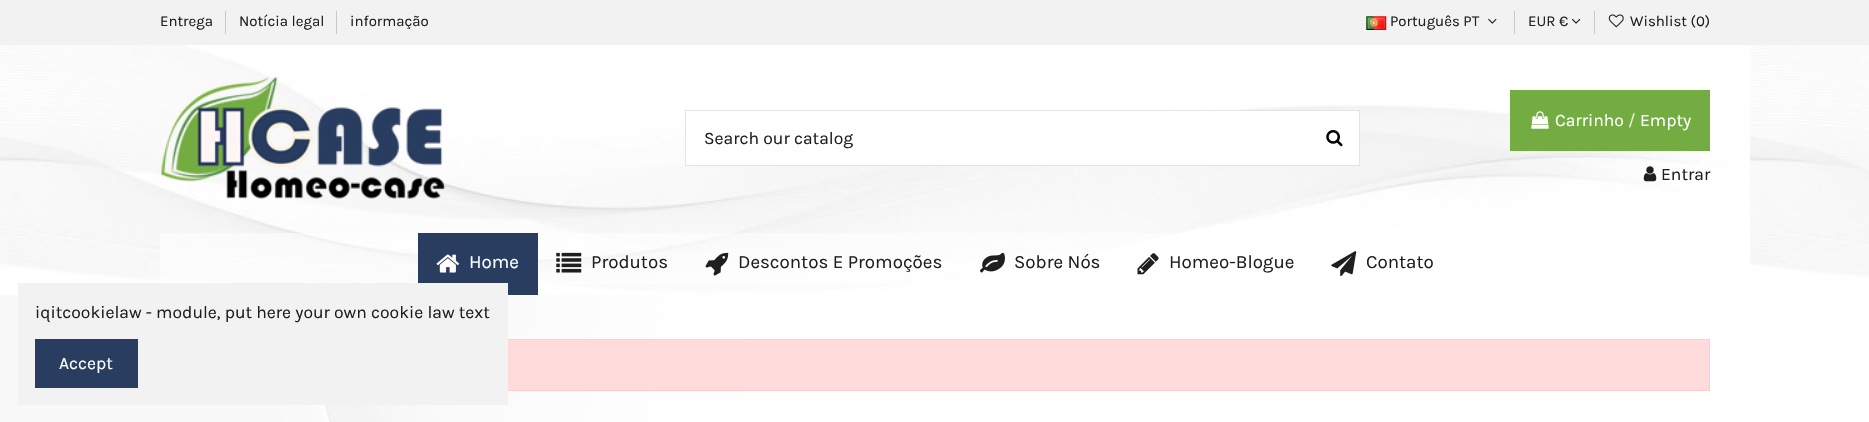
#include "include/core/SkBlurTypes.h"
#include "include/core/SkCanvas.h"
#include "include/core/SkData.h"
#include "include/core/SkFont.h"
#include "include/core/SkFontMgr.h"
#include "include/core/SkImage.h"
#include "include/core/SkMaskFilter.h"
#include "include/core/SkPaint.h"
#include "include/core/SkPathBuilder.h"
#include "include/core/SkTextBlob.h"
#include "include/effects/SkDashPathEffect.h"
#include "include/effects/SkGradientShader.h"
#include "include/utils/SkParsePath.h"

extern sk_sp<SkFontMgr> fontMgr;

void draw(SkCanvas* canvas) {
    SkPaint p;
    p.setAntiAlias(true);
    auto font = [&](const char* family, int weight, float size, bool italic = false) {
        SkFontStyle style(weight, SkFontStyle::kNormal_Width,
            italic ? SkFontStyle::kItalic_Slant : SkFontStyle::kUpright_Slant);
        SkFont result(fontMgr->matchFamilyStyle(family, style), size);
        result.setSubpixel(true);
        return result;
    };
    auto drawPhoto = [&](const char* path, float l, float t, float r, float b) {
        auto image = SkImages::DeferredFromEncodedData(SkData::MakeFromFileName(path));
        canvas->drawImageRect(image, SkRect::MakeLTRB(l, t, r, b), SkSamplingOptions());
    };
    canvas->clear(0xFFF8F8F8);
    drawPhoto("media/1.png", 278, 295, 1869, 422);
    drawPhoto("media/2.png", 0, 45, 1869, 295);
    p.setColor(0xFFF2F2F2);
    canvas->drawRect(SkRect::MakeLTRB(0, 0, 1869, 45), p);
    auto font1 = font("Karla", 400, 15);
    p.setColor(0xFF1F1F1F);
    canvas->drawString("Entrega", 160, 26, font1, p);
    p.setColor(0xFFC8C8C8);
    canvas->drawRect(SkRect::MakeLTRB(225, 11, 226, 34), p);
    p.setColor(0xFF1F1F1F);
    canvas->drawString("Notícia legal", 239, 26, font1, p);
    p.setColor(0xFFC8C8C8);
    canvas->drawRect(SkRect::MakeLTRB(336, 11, 337, 34), p);
    p.setColor(0xFF1F1F1F);
    canvas->drawString("informação", 350, 26, font1, p);
    drawPhoto("media/3.png", 1366, 16, 1387, 30);
    canvas->drawString("Português PT", 1390, 26, font1, p);
    drawPhoto("media/4.png", 1488, 18, 1497, 24);
    p.setColor(0xFFC8C8C8);
    canvas->drawRect(SkRect::MakeLTRB(1514, 11, 1515, 34), p);
    p.setColor(0xFF1F1F1F);
    canvas->drawString("EUR €", 1528, 26, font1, p);
    drawPhoto("media/5.png", 1571, 18, 1581, 24);
    p.setColor(0xFFC8C8C8);
    canvas->drawRect(SkRect::MakeLTRB(1594, 11, 1595, 34), p);
    drawPhoto("media/6.png", 1608, 14, 1624, 28);
    p.setColor(0xFF1F1F1F);
    canvas->drawString("Wishlist (0)", 1630, 26, font1, p);
    drawPhoto("media/7.png", 161, 77, 446, 199);
    p.setColor(0xFFFFFFFF);
    canvas->drawRect(SkRect::MakeLTRB(685.5f, 110.5f, 1359.5f, 165.5f), p);
    p.setStyle(SkPaint::kStroke_Style);
    p.setStrokeWidth(1);
    p.setColor(0xFFE3E3E3);
    canvas->drawRect(SkRect::MakeLTRB(685.5f, 110.5f, 1359.5f, 165.5f), p);
    auto font2 = font("Karla", 400, 17.5f);
    p.setStyle(SkPaint::kFill_Style);
    p.setColor(0xFF1F1F1F);
    canvas->drawString("Search our catalog", 704, 144, font2, p);
    drawPhoto("media/8.png", 1326, 130, 1343, 147);
    p.setColor(0xFF73AC40);
    canvas->drawRect(SkRect::MakeLTRB(1510, 90, 1710, 151), p);
    drawPhoto("media/9.png", 1531, 111, 1549, 129);
    p.setColor(0xFFFFFFFF);
    canvas->drawString("Carrinho", 1555, 126, font2, p);
    p.setColor(0xFFE3EED9);
    canvas->drawString("/", 1628, 126, font2, p);
    p.setColor(0xFFFFFFFF);
    canvas->drawString("Empty", 1640, 126, font2, p);
    drawPhoto("media/10.png", 1643, 166, 1657, 182);
    p.setColor(0xFF1F1F1F);
    canvas->drawString("Entrar", 1661, 180, font2, p);
    p.setColor(0x80FFFFFF);
    canvas->drawRect(SkRect::MakeLTRB(160, 233, 1173, 284), p);
    p.setColor(0xFF283D60);
    canvas->drawRect(SkRect::MakeLTRB(418, 233, 538, 295), p);
    drawPhoto("media/11.png", 436, 254, 460, 273);
    auto font3 = font("Karla", 400, 18.75f);
    p.setColor(0xFFFFFFFF);
    canvas->drawString("Home", 469, 268, font3, p);
    drawPhoto("media/12.png", 556, 252, 582, 273);
    p.setColor(0xFF1F1F1F);
    canvas->drawString("Produtos", 591, 268, font3, p);
    drawPhoto("media/13.png", 705, 252, 729, 276);
    canvas->drawString("Descontos E Promoções", 738, 268, font3, p);
    drawPhoto("media/14.png", 980, 252, 1005, 273);
    canvas->drawString("Sobre Nós", 1014, 268, font3, p);
    drawPhoto("media/15.png", 1137, 253, 1159, 275);
    canvas->drawString("Homeo-Blogue", 1169, 268, font3, p);
    drawPhoto("media/16.png", 1331, 251, 1357, 276);
    canvas->drawString("Contato", 1366, 268, font3, p);
    p.setColor(0xFFFFDBDB);
    canvas->drawRect(SkRect::MakeLTRB(508, 340, 1709, 390), p);
    p.setStyle(SkPaint::kStroke_Style);
    p.setColor(0xFFFFCDCD);
    canvas->drawRect(SkRect::MakeLTRB(160.5f, 339.5f, 1709.5f, 390.5f), p);
    p.setStyle(SkPaint::kFill_Style);
    p.setColor(0xFFF2F2F2);
    canvas->drawRect(SkRect::MakeLTRB(18, 283, 508, 405), p);
    p.setColor(0xFF1F1F1F);
    canvas->drawString("iqitcookielaw - module, put here your own cookie law text", 35, 318, font2, p);
    p.setColor(0xFF283D60);
    canvas->drawRect(SkRect::MakeLTRB(35, 339, 138, 388), p);
    p.setColor(0xFFFFFFFF);
    canvas->drawString("Accept", 59, 369, font2, p);
}
